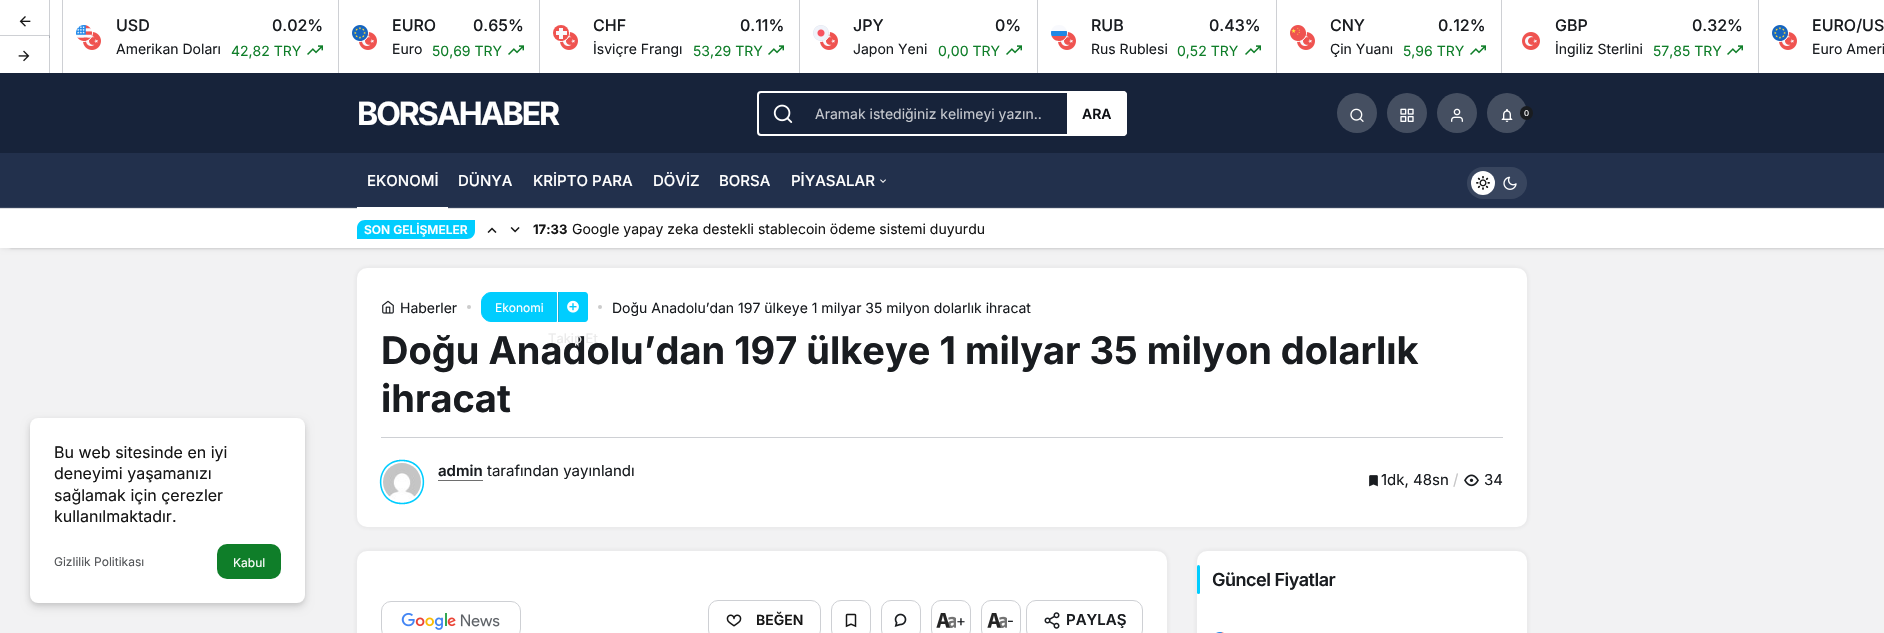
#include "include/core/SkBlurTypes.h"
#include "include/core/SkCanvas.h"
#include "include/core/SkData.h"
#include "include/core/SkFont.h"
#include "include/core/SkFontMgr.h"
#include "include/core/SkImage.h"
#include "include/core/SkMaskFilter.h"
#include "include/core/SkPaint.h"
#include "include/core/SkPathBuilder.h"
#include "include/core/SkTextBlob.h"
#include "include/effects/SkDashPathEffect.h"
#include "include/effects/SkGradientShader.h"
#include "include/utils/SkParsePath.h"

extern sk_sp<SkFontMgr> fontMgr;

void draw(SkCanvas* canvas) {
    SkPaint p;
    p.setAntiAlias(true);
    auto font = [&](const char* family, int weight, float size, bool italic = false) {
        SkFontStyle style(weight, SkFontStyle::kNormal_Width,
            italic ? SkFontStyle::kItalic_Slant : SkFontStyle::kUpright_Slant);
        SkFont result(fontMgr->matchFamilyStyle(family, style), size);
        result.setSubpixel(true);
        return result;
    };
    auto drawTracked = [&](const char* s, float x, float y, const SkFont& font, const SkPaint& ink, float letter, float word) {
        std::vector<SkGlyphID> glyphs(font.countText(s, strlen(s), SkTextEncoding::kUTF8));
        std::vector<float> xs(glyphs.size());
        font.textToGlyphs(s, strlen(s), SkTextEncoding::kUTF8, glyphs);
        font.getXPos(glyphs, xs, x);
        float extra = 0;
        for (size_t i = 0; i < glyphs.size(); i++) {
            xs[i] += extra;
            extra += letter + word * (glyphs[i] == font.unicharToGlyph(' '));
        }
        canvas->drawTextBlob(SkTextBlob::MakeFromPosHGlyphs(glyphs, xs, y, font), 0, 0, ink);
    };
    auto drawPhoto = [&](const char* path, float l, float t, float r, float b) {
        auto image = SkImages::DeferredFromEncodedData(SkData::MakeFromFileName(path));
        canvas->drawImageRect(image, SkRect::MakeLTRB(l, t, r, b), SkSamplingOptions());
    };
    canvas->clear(0xFFF2F2F3);
    p.setColor(0xFFFFFFFF);
    canvas->drawRect(SkRect::MakeLTRB(0, 0, 1884, 73), p);
    p.setColor(0xFFCED0D4);
    canvas->drawRect(SkRect::MakeLTRB(49, 0, 50, 38), p);
    drawPhoto("media/1.png", 19, 16, 31, 27);
    canvas->drawRect(SkRect::MakeLTRB(62, 0, 63, 73), p);
    canvas->drawRect(SkRect::MakeLTRB(338, 0, 339, 73), p);
    drawPhoto("media/3.png", 83, 32, 101, 50);
    p.setStyle(SkPaint::kStroke_Style);
    p.setStrokeWidth(1);
    p.setColor(0xFFFFFFFF);
    canvas->drawCircle(84, 33, 8.5f, p);
    drawPhoto("media/2.png", 76, 25, 92, 41);
    auto font1 = font("Inter", 500, 16);
    p.setStyle(SkPaint::kFill_Style);
    p.setColor(0xFF191C20);
    canvas->drawString("USD", 116, 31, font1, p);
    canvas->drawString("0.02%", 272, 31, font1, p);
    auto font2 = font("Inter", 400, 14);
    canvas->drawString("Amerikan Doları", 116, 54, font2, p);
    p.setColor(0xFF0F7E29);
    canvas->drawString("42,82 TRY", 231, 56, font2, p);
    drawPhoto("media/4.png", 307, 45, 323, 55);
    p.setColor(0xFFCED0D4);
    canvas->drawRect(SkRect::MakeLTRB(539, 0, 540, 73), p);
    drawPhoto("media/3.png", 359, 32, 377, 50);
    p.setStyle(SkPaint::kStroke_Style);
    p.setColor(0xFFFFFFFF);
    canvas->drawCircle(360, 33, 8.5f, p);
    drawPhoto("media/5.png", 352, 25, 368, 41);
    p.setStyle(SkPaint::kFill_Style);
    p.setColor(0xFF191C20);
    canvas->drawString("EURO", 392, 31, font1, p);
    canvas->drawString("0.65%", 473, 31, font1, p);
    canvas->drawString("Euro", 392, 54, font2, p);
    p.setColor(0xFF0F7E29);
    canvas->drawString("50,69 TRY", 432, 56, font2, p);
    drawPhoto("media/4.png", 508, 45, 524, 55);
    p.setColor(0xFFCED0D4);
    canvas->drawRect(SkRect::MakeLTRB(799, 0, 800, 73), p);
    drawPhoto("media/3.png", 560, 32, 578, 50);
    p.setStyle(SkPaint::kStroke_Style);
    p.setColor(0xFFFFFFFF);
    canvas->drawCircle(561, 33, 8.5f, p);
    p.setStyle(SkPaint::kFill_Style);
    p.setColor(0xFFEF5350);
    canvas->drawCircle(561, 33, 8, p);
    p.setColor(0xFFF8F9FD);
    canvas->drawRect(SkRect::MakeLTRB(556, 31, 567, 35), p);
    canvas->drawRect(SkRect::MakeLTRB(559, 28, 563, 39), p);
    p.setColor(0xFF191C20);
    canvas->drawString("CHF", 593, 31, font1, p);
    canvas->drawString("0.11%", 740, 31, font1, p);
    canvas->drawString("İsviçre Frangı", 593, 54, font2, p);
    p.setColor(0xFF0F7E29);
    canvas->drawString("53,29 TRY", 693, 56, font2, p);
    drawPhoto("media/4.png", 768, 45, 784, 55);
    p.setColor(0xFFCED0D4);
    canvas->drawRect(SkRect::MakeLTRB(1037, 0, 1038, 73), p);
    drawPhoto("media/3.png", 820, 32, 838, 50);
    p.setStyle(SkPaint::kStroke_Style);
    p.setColor(0xFFFFFFFF);
    canvas->drawCircle(821, 33, 8.5f, p);
    drawPhoto("media/6.png", 813, 25, 829, 41);
    p.setStyle(SkPaint::kFill_Style);
    p.setColor(0xFF191C20);
    canvas->drawString("JPY", 853, 31, font1, p);
    canvas->drawString("0%", 995, 31, font1, p);
    canvas->drawString("Japon Yeni", 853, 54, font2, p);
    p.setColor(0xFF0F7E29);
    canvas->drawString("0,00 TRY", 938, 56, font2, p);
    drawPhoto("media/4.png", 1006, 45, 1022, 55);
    p.setColor(0xFFCED0D4);
    canvas->drawRect(SkRect::MakeLTRB(1276, 0, 1277, 73), p);
    drawPhoto("media/3.png", 1058, 32, 1076, 50);
    p.setStyle(SkPaint::kStroke_Style);
    p.setColor(0xFFFFFFFF);
    canvas->drawCircle(1059, 33, 8.5f, p);
    canvas->save();
    canvas->clipPath(SkPathBuilder().moveTo(1059, 25).cubicTo(1063.5f, 25, 1067, 28.5f, 1067, 33).cubicTo(1067, 37.5f, 1063.5f, 41, 1059, 41).cubicTo(1054.5f, 41, 1051, 37.5f, 1051, 33).cubicTo(1051, 28.5f, 1054.5f, 25, 1059, 25).close().detach(), true);
    p.setStyle(SkPaint::kFill_Style);
    {
        const struct { float l, t, r, b; SkColor color; } items[] = {
            {1051, 25, 1067, 31, 0xFFF8F9FD},
            {1051, 31, 1067, 36, 0xFF1E88E5},
            {1051, 36, 1067, 41, 0xFFEF5350},
        };
        for (auto [l, t, r, b, color] : items) {
            p.setColor(color);
            canvas->drawRect(SkRect::MakeLTRB(l, t, r, b), p);
        }
    }
    canvas->restore();
    p.setColor(0xFF191C20);
    canvas->drawString("RUB", 1091, 31, font1, p);
    canvas->drawString("0.43%", 1209, 31, font1, p);
    canvas->drawString("Rus Rublesi", 1091, 54, font2, p);
    p.setColor(0xFF0F7E29);
    canvas->drawString("0,52 TRY", 1177, 56, font2, p);
    drawPhoto("media/4.png", 1245, 45, 1261, 55);
    p.setColor(0xFFCED0D4);
    canvas->drawRect(SkRect::MakeLTRB(1501, 0, 1502, 73), p);
    drawPhoto("media/3.png", 1297, 32, 1315, 50);
    p.setStyle(SkPaint::kStroke_Style);
    p.setColor(0xFFFFFFFF);
    canvas->drawCircle(1298, 33, 8.5f, p);
    drawPhoto("media/7.png", 1290, 25, 1306, 41);
    p.setStyle(SkPaint::kFill_Style);
    p.setColor(0xFF191C20);
    canvas->drawString("CNY", 1330, 31, font1, p);
    canvas->drawString("0.12%", 1438, 31, font1, p);
    canvas->drawString("Çin Yuanı", 1330, 54, font2, p);
    p.setColor(0xFF0F7E29);
    canvas->drawString("5,96 TRY", 1403, 56, font2, p);
    drawPhoto("media/4.png", 1470, 45, 1486, 55);
    p.setColor(0xFFCED0D4);
    canvas->drawRect(SkRect::MakeLTRB(1758, 0, 1759, 73), p);
    drawPhoto("media/3.png", 1522, 32, 1540, 50);
    p.setColor(0xFF191C20);
    canvas->drawString("GBP", 1555, 31, font1, p);
    canvas->drawString("0.32%", 1692, 31, font1, p);
    canvas->drawString("İngiliz Sterlini", 1555, 54, font2, p);
    p.setColor(0xFF0F7E29);
    canvas->drawString("57,85 TRY", 1653, 56, font2, p);
    drawPhoto("media/4.png", 1727, 45, 1743, 55);
    drawPhoto("media/3.png", 1779, 32, 1797, 50);
    p.setStyle(SkPaint::kStroke_Style);
    p.setColor(0xFFFFFFFF);
    canvas->drawCircle(1780, 33, 8.5f, p);
    drawPhoto("media/5.png", 1772, 25, 1788, 41);
    p.setStyle(SkPaint::kFill_Style);
    p.setColor(0xFF191C20);
    canvas->drawString("EURO/US", 1812, 31, font1, p);
    canvas->drawString("Euro Ameri", 1812, 54, font2, p);
    p.setColor(0xFFCED0D4);
    canvas->drawPath(SkPathBuilder().moveTo(0, 35).lineTo(50, 35).lineTo(49, 36).lineTo(0, 36).close().detach(), p);
    p.setColor(0x4D5B616E);
    canvas->drawPath(SkPathBuilder().moveTo(50, 35).lineTo(50, 73).lineTo(49, 73).lineTo(49, 36).close().detach(), p);
    drawPhoto("media/8.png", 18, 50, 30, 62);
    p.setColor(0xFF17233A);
    canvas->drawRect(SkRect::MakeLTRB(0, 73, 1884, 153), p);
    auto font3 = font("Inter", 700, 32);
    p.setColor(0xFFFFFFFF);
    drawTracked("BORSAHABER", 357, 125, font3, p, -2, 0);
    p.setStyle(SkPaint::kStroke_Style);
    p.setStrokeWidth(2);
    canvas->drawRoundRect(SkRect::MakeLTRB(758, 92, 1126, 135), 3, 3, p);
    drawPhoto("media/9.png", 773, 104, 793, 123);
    p.setStyle(SkPaint::kFill_Style);
    p.setColor(0xFFC5C8CE);
    canvas->drawString("Aramak istediğiniz kelimeyi yazın..", 815, 119, font2, p);
    p.setColor(0xFFFFFFFF);
    canvas->drawPath(SkPathBuilder().moveTo(1067, 91).lineTo(1123, 91).cubicTo(1125, 91, 1127, 93, 1127, 95).lineTo(1127, 132).cubicTo(1127, 134, 1125, 136, 1123, 136).lineTo(1067, 136).close().detach(), p);
    auto font4 = font("Inter", 600, 14);
    p.setColor(0xFF0E1014);
    canvas->drawString("ARA", 1082, 119, font4, p);
    p.setColor(0xFF454F61);
    canvas->drawCircle(1357, 113, 20, p);
    drawPhoto("media/10.png", 1350, 108, 1364, 122);
    canvas->drawCircle(1407, 113, 20, p);
    drawPhoto("media/11.png", 1400, 108, 1414, 122);
    canvas->drawCircle(1457, 113, 20, p);
    drawPhoto("media/12.png", 1451, 108, 1463, 122);
    canvas->drawCircle(1507, 113, 20, p);
    drawPhoto("media/13.png", 1501, 109, 1513, 122);
    p.setColor(0xFF191C20);
    canvas->drawRoundRect(SkRect::MakeLTRB(1520, 106, 1533, 120), 6.5f, 6.5f, p);
    auto font5 = font("Inter", 400, 8);
    p.setColor(0xFFFFFFFF);
    canvas->drawString("0", 1524, 116, font5, p);
    p.setColor(0x1A000000);
    p.setMaskFilter(SkMaskFilter::MakeBlur(kNormal_SkBlurStyle, 1));
    canvas->drawRect(SkRect::MakeLTRB(10, 209, 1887, 249), p);
    p.setMaskFilter(nullptr);
    p.setMaskFilter(SkMaskFilter::MakeBlur(kNormal_SkBlurStyle, 2.5f));
    canvas->drawRect(SkRect::MakeLTRB(1, 208, 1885, 248), p);
    p.setMaskFilter(nullptr);
    p.setColor(0xFF22304C);
    canvas->drawRect(SkRect::MakeLTRB(0, 153, 1884, 207), p);
    auto font6 = font("Inter", 500, 15);
    p.setColor(0xFFFFFFFF);
    canvas->drawString("EKONOMİ", 367, 186, font6, p);
    {
        const struct { float l, t, r, b; SkColor color; } items[] = {
            {0, 207, 1884, 208, 0xFF38455E},
            {0, 208, 1884, 209, 0xFFDEDFE2},
            {357, 207, 448, 209, 0xFFFFFFFF},
        };
        for (auto [l, t, r, b, color] : items) {
            p.setColor(color);
            canvas->drawRect(SkRect::MakeLTRB(l, t, r, b), p);
        }
    }
    {
        const struct { const char* s; float x, y; } items[] = {
            {"DÜNYA", 458, 186},
            {"KRİPTO PARA", 533, 186},
            {"DÖVİZ", 653, 186},
            {"BORSA", 719, 186},
            {"PİYASALAR", 791, 186},
        };
        for (auto [s, x, y] : items) {
            canvas->drawString(s, x, y, font6, p);
        }
    }
    drawPhoto("media/14.png", 880, 179, 886, 183);
    p.setColor(0xFF38455E);
    canvas->drawRoundRect(SkRect::MakeLTRB(1467, 167, 1527, 199), 16, 16, p);
    p.setColor(0xFFFFFFFF);
    canvas->drawCircle(1483, 183, 12, p);
    drawPhoto("media/15.png", 1476, 176, 1490, 190);
    drawPhoto("media/16.png", 1503, 176, 1517, 190);
    canvas->drawRect(SkRect::MakeLTRB(0, 209, 1884, 248), p);
    p.setColor(0xFF00CDFF);
    canvas->drawPath(SkPathBuilder().moveTo(365, 220).lineTo(475, 220).lineTo(475, 231).cubicTo(475, 235.5f, 471.5f, 239, 467, 239).lineTo(357, 239).lineTo(357, 228).cubicTo(357, 223.5f, 360.5f, 220, 365, 220).close().detach(), p);
    auto font7 = font("Inter", 600, 12);
    p.setColor(0xFFFFFFFF);
    canvas->drawString("SON GELİŞMELER", 364, 234, font7, p);
    drawPhoto("media/17.png", 487, 227, 497, 233);
    drawPhoto("media/18.png", 510, 227, 520, 233);
    auto font8 = font("Inter", 700, 13);
    p.setColor(0xFF161616);
    canvas->drawString("17:33", 533, 234, font8, p);
    canvas->drawString("Google yapay zeka destekli stablecoin ödeme sistemi duyurdu", 572, 234, font2, p);
    p.setColor(0x14000000);
    p.setMaskFilter(SkMaskFilter::MakeBlur(kNormal_SkBlurStyle, 2));
    canvas->drawRoundRect(SkRect::MakeLTRB(30, 420, 305, 605), 8, 8, p);
    p.setMaskFilter(nullptr);
    p.setColor(0x1F000000);
    p.setMaskFilter(SkMaskFilter::MakeBlur(kNormal_SkBlurStyle, 4));
    canvas->drawRoundRect(SkRect::MakeLTRB(30, 422, 305, 607), 8, 8, p);
    p.setMaskFilter(nullptr);
    p.setColor(0xFFFFFFFF);
    canvas->drawRoundRect(SkRect::MakeLTRB(30, 418, 305, 603), 8, 8, p);
    auto font9 = font("Inter", 400, 16);
    p.setColor(0xFF161616);
    {
        const struct { const char* s; float x, y; } items[] = {
            {"Bu web sitesinde en iyi", 54, 458},
            {"deneyimi yaşamanızı", 54, 479},
            {"sağlamak için çerezler", 54, 501},
            {"kullanılmaktadır.", 54, 522},
        };
        for (auto [s, x, y] : items) {
            canvas->drawString(s, x, y, font9, p);
        }
    }
    auto font10 = font("Inter", 400, 12);
    p.setColor(0xFF535558);
    canvas->drawString("Gizlilik Politikası", 54, 566, font10, p);
    p.setColor(0xFF0F7E29);
    canvas->drawRoundRect(SkRect::MakeLTRB(217, 544, 281, 579), 10, 10, p);
    p.setColor(0xFFFFFFFF);
    canvas->drawString("Kabul", 233, 567, font10, p);
    p.setColor(0x1A32353D);
    p.setMaskFilter(SkMaskFilter::MakeBlur(kNormal_SkBlurStyle, 2.5f));
    canvas->drawRoundRect(SkRect::MakeLTRB(357, 268, 1527, 527), 10, 10, p);
    p.setMaskFilter(nullptr);
    p.setColor(0xFFFFFFFF);
    canvas->drawRoundRect(SkRect::MakeLTRB(357, 268, 1527, 527), 10, 10, p);
    drawPhoto("media/19.png", 382, 300, 394, 314);
    p.setColor(0xFF191C20);
    canvas->drawString("Haberler", 400, 313, font2, p);
    p.setColor(0xFFCCCCCC);
    canvas->drawCircle(469, 307, 2, p);
    p.setColor(0xFF00CDFF);
    canvas->drawPath(SkPathBuilder().moveTo(491, 292.5f).lineTo(556.5f, 292.5f).lineTo(556.5f, 321.5f).lineTo(491, 321.5f).cubicTo(486, 321.5f, 481.5f, 317, 481.5f, 312).lineTo(481.5f, 302).cubicTo(481.5f, 297, 486, 292.5f, 491, 292.5f).close().detach(), p);
    p.setStyle(SkPaint::kStroke_Style);
    p.setStrokeWidth(1);
    canvas->drawPath(SkPathBuilder().moveTo(491, 292.5f).lineTo(556.5f, 292.5f).lineTo(556.5f, 321.5f).lineTo(491, 321.5f).cubicTo(486, 321.5f, 481.5f, 317, 481.5f, 312).lineTo(481.5f, 302).cubicTo(481.5f, 297, 486, 292.5f, 491, 292.5f).close().detach(), p);
    p.setStyle(SkPaint::kFill_Style);
    p.setColor(0xFFFFFFFF);
    canvas->drawString("Ekonomi", 495, 312, font10, p);
    p.setColor(0xFFCCCCCC);
    canvas->drawCircle(600, 307, 2, p);
    p.setColor(0xFF00CDFF);
    canvas->drawPath(SkPathBuilder().moveTo(558, 292).lineTo(585, 292).cubicTo(586.5f, 292, 588, 293.5f, 588, 295).lineTo(588, 319).cubicTo(588, 320.5f, 586.5f, 322, 585, 322).lineTo(558, 322).close().detach(), p);
    p.setColor(0xFF1BADD4);
    canvas->drawRect(SkRect::MakeLTRB(558, 292, 559, 322), p);
    drawPhoto("media/20.png", 567, 300, 579, 313);
    auto font11 = font("Inter", 700, 38);
    p.setColor(0xFF191C20);
    canvas->drawString("Doğu Anadolu’dan 197 ülkeye 1 milyar 35 milyon dolarlık", 381, 364, font11, p);
    auto font12 = font("Inter", 400, 13);
    p.setColor(0xFFEAEAEA);
    canvas->drawString("Takip Et", 548, 343, font12, p);
    p.setColor(0xFF191C20);
    canvas->drawString("Doğu Anadolu’dan 197 ülkeye 1 milyar 35 milyon dolarlık ihracat", 612, 313, font2, p);
    canvas->drawString("ihracat", 381, 412, font11, p);
    p.setColor(0xFFCED0D4);
    canvas->drawRect(SkRect::MakeLTRB(381, 437, 1503, 438), p);
    drawPhoto("media/21.png", 383, 463, 421, 499);
    p.setStyle(SkPaint::kStroke_Style);
    p.setStrokeWidth(1.6f);
    p.setStrokeCap(SkPaint::kRound_Cap);
    p.setColor(0xFF00CDFF);
    p.setPathEffect(SkDashPathEffect::Make({{0.54f, 0.54f}}, 0));
    canvas->drawPath(SkPathBuilder().moveTo(402, 460.5f).cubicTo(430.5f, 460.5f, 430.5f, 503.5f, 402, 503.5f).cubicTo(373.5f, 503.5f, 373.5f, 460.5f, 402, 460.5f).close().detach(), p);
    p.setPathEffect(nullptr);
    auto font13 = font("Inter", 600, 15);
    p.setStyle(SkPaint::kFill_Style);
    p.setColor(0xFF191C20);
    canvas->drawString("admin", 438, 476, font13, p);
    p.setColor(0xFF6E6E6E);
    canvas->drawRect(SkRect::MakeLTRB(438, 480, 483, 481), p);
    auto font14 = font("Inter", 400, 15);
    p.setColor(0xFF191C20);
    canvas->drawString("tarafından yayınlandı", 487, 476, font14, p);
    drawPhoto("media/22.png", 1369, 475, 1378, 487);
    canvas->drawString("1dk, 48sn", 1381, 485, font14, p);
    p.setColor(0xFFC6C6C7);
    canvas->drawString("/", 1453, 485, font14, p);
    drawPhoto("media/23.png", 1464, 474, 1479, 487);
    p.setColor(0xFF191C20);
    canvas->drawString("34", 1484, 485, font14, p);
    p.setColor(0x1A32353D);
    p.setMaskFilter(SkMaskFilter::MakeBlur(kNormal_SkBlurStyle, 2.5f));
    canvas->drawRoundRect(SkRect::MakeLTRB(1197, 551, 1527, 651), 10, 10, p);
    p.setMaskFilter(nullptr);
    p.setColor(0xFFFFFFFF);
    canvas->drawRoundRect(SkRect::MakeLTRB(1197, 551, 1527, 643), 10, 10, p);
    p.setColor(0xFF00CDFF);
    canvas->drawRoundRect(SkRect::MakeLTRB(1197, 565, 1200, 594), 1.5f, 1.5f, p);
    auto font15 = font("Inter", 600, 18);
    p.setColor(0xFF191C20);
    drawTracked("Güncel Fiyatlar", 1212, 586, font15, p, -0.5f, 0);
    drawPhoto("media/24.png", 1216, 632, 1224, 633);
    p.setColor(0x1A32353D);
    p.setMaskFilter(SkMaskFilter::MakeBlur(kNormal_SkBlurStyle, 2.5f));
    canvas->drawRoundRect(SkRect::MakeLTRB(357, 551, 1167, 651), 10, 10, p);
    p.setMaskFilter(nullptr);
    p.setColor(0xFFFFFFFF);
    canvas->drawRoundRect(SkRect::MakeLTRB(357, 551, 1167, 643), 10, 10, p);
    drawPhoto("media/25.png", 401, 613, 500, 630);
    p.setStyle(SkPaint::kStroke_Style);
    p.setStrokeWidth(1);
    p.setStrokeCap(SkPaint::kButt_Cap);
    p.setColor(0xFFCED0D4);
    canvas->drawRoundRect(SkRect::MakeLTRB(381.5f, 601.5f, 520.5f, 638.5f), 9.5f, 9.5f, p);
    canvas->drawRoundRect(SkRect::MakeLTRB(708.5f, 600.5f, 820.5f, 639.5f), 9.5f, 9.5f, p);
    drawPhoto("media/26.png", 726, 614, 742, 627);
    p.setStyle(SkPaint::kFill_Style);
    p.setColor(0xFF161616);
    canvas->drawString("BEĞEN", 756, 625, font4, p);
    p.setStyle(SkPaint::kStroke_Style);
    p.setColor(0xFFCED0D4);
    canvas->drawRoundRect(SkRect::MakeLTRB(831.5f, 600.5f, 870.5f, 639.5f), 9.5f, 9.5f, p);
    drawPhoto("media/27.png", 845, 613, 857, 628);
    canvas->drawRoundRect(SkRect::MakeLTRB(881.5f, 600.5f, 920.5f, 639.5f), 9.5f, 9.5f, p);
    drawPhoto("media/28.png", 894, 613, 907, 627);
    canvas->drawRoundRect(SkRect::MakeLTRB(931.5f, 600.5f, 970.5f, 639.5f), 9.5f, 9.5f, p);
    drawPhoto("media/29.png", 936, 613, 956, 628);
    p.setStyle(SkPaint::kFill_Style);
    p.setColor(0xFF191C20);
    canvas->drawString("+", 956, 626, font14, p);
    p.setStyle(SkPaint::kStroke_Style);
    p.setColor(0xFFCED0D4);
    canvas->drawRoundRect(SkRect::MakeLTRB(981.5f, 600.5f, 1020.5f, 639.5f), 9.5f, 9.5f, p);
    drawPhoto("media/29.png", 987, 613, 1007, 628);
    p.setStyle(SkPaint::kFill_Style);
    p.setColor(0xFF191C20);
    canvas->drawString("-", 1007, 626, font14, p);
    p.setStyle(SkPaint::kStroke_Style);
    p.setColor(0xFFCED0D4);
    canvas->drawRoundRect(SkRect::MakeLTRB(1026.5f, 600.5f, 1142.5f, 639.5f), 9.5f, 9.5f, p);
    drawPhoto("media/30.png", 1044, 612, 1060, 629);
    p.setStyle(SkPaint::kFill_Style);
    p.setColor(0xFF191C20);
    canvas->drawString("PAYLAŞ", 1066, 625, font13, p);
}
